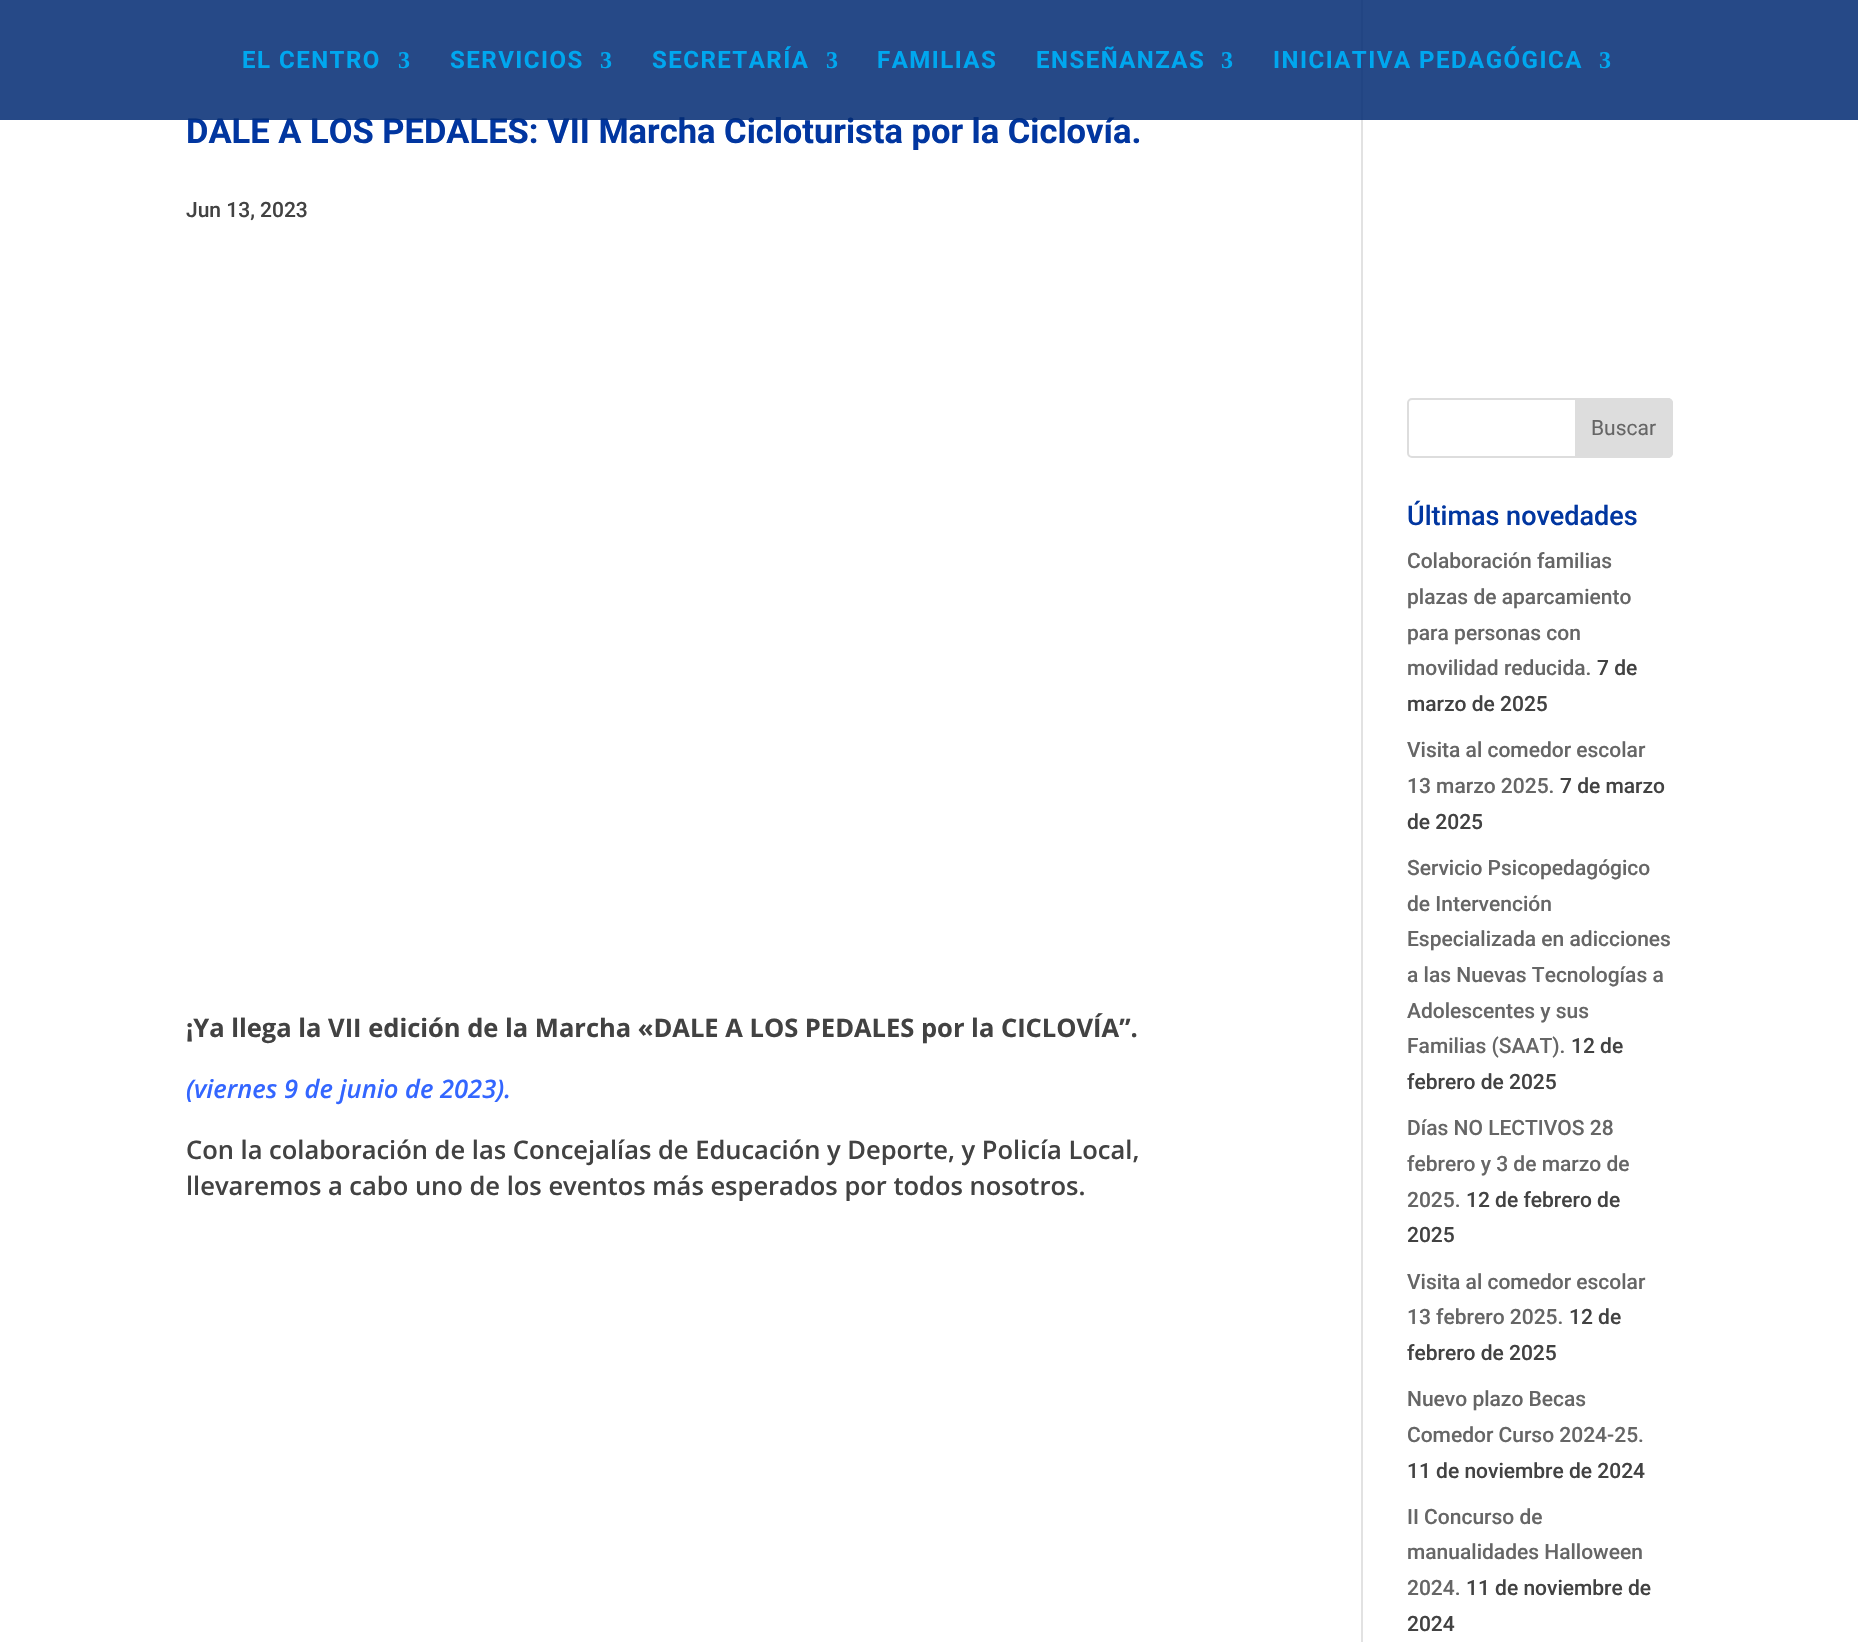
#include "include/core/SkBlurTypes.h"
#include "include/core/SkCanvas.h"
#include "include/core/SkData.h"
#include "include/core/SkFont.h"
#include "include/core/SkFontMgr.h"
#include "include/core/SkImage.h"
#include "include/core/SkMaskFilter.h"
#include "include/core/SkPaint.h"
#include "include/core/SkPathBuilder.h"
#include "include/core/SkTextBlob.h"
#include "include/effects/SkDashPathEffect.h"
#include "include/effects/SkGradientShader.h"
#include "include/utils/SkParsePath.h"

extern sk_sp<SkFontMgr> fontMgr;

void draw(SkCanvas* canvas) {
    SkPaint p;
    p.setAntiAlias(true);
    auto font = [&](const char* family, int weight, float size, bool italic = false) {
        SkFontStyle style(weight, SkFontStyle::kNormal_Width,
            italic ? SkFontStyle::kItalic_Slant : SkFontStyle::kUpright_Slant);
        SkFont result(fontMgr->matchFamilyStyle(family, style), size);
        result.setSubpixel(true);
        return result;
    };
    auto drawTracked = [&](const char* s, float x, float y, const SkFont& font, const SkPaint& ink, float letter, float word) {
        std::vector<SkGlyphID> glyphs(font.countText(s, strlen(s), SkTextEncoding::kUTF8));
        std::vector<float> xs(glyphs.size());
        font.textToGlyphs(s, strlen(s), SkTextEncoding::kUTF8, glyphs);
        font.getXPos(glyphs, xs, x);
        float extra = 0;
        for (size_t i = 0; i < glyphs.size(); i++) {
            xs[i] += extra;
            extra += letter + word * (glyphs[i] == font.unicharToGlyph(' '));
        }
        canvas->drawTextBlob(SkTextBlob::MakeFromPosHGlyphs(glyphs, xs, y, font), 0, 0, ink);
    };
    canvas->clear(0xFFFFFFFF);
    p.setColor(0xFFE2E2E2);
    canvas->drawRect(SkRect::MakeLTRB(1361, 0, 1363, 1642), p);
    auto font1 = font("Roboto", 700, 34.5f);
    p.setColor(0xFF0136A0);
    canvas->drawString("DALE A LOS PEDALES: VII Marcha Cicloturista por la Ciclovía.", 186, 143, font1, p);
    p.setColor(0xDB022B73);
    canvas->drawRect(SkRect::MakeLTRB(0, 0, 1858, 120), p);
    auto font2 = font("Roboto", 700, 24);
    p.setColor(0xFF00A7EF);
    drawTracked("EL CENTRO", 242, 68, font2, p, 1.5f, 0);
    auto font3 = font("Liberation Serif", 700, 24);
    drawTracked("3", 398, 68, font3, p, 1.5f, 0);
    drawTracked("SERVICIOS", 450, 68, font2, p, 1.5f, 0);
    drawTracked("3", 600, 68, font3, p, 1.5f, 0);
    drawTracked("SECRETARÍA", 652, 68, font2, p, 1.5f, 0);
    drawTracked("3", 826, 68, font3, p, 1.5f, 0);
    drawTracked("FAMILIAS", 877, 68, font2, p, 1.5f, 0);
    drawTracked("ENSEÑANZAS", 1036, 68, font2, p, 1.5f, 0);
    drawTracked("3", 1221, 68, font3, p, 1.5f, 0);
    drawTracked("INICIATIVA PEDAGÓGICA", 1273, 68, font2, p, 1.5f, 0);
    drawTracked("3", 1599, 68, font3, p, 1.5f, 0);
    auto font4 = font("Roboto", 500, 21);
    p.setColor(0xFF424242);
    canvas->drawString("Jun 13, 2023", 186, 217, font4, p);
    auto font5 = font("Open Sans", 700, 25.5f);
    canvas->drawString("¡Ya llega la VII edición de la Marcha «DALE A LOS PEDALES por la CICLOVÍA”.", 186, 1037, font5, p);
    auto font6 = font("Open Sans", 600, 25.5f, true);
    p.setColor(0xFF3366FF);
    canvas->drawString("(viernes 9 de junio de 2023).", 186, 1098, font6, p);
    auto font7 = font("Open Sans", 600, 25.5f);
    p.setColor(0xFF424242);
    canvas->drawString("Con la colaboración de las Concejalías de Educación y Deporte, y Policía Local,", 186, 1159, font7, p);
    canvas->drawString("llevaremos a cabo uno de los eventos más esperados por todos nosotros.", 186, 1195, font7, p);
    p.setStyle(SkPaint::kStroke_Style);
    p.setStrokeWidth(2);
    p.setColor(0xFFDDDDDD);
    canvas->drawRoundRect(SkRect::MakeLTRB(1408, 399, 1672, 457), 4, 4, p);
    p.setStyle(SkPaint::kFill_Style);
    canvas->drawPath(SkPathBuilder().moveTo(1576, 399).lineTo(1668, 399).cubicTo(1670, 399, 1672, 401, 1672, 403).lineTo(1672, 453).cubicTo(1672, 455, 1670, 457, 1668, 457).lineTo(1576, 457).close().detach(), p);
    p.setStyle(SkPaint::kStroke_Style);
    canvas->drawPath(SkPathBuilder().moveTo(1576, 399).lineTo(1668, 399).cubicTo(1670, 399, 1672, 401, 1672, 403).lineTo(1672, 453).cubicTo(1672, 455, 1670, 457, 1668, 457).lineTo(1576, 457).close().detach(), p);
    auto font8 = font("Roboto", 400, 21);
    p.setStyle(SkPaint::kFill_Style);
    p.setColor(0xFF666666);
    canvas->drawString("Buscar", 1591, 435, font8, p);
    auto font9 = font("Roboto", 500, 27);
    p.setColor(0xFF0136A0);
    canvas->drawString("Últimas novedades", 1407, 525, font9, p);
    p.setColor(0xFF666666);
    {
        const struct { const char* s; float x, y; } items[] = {
            {"Colaboración familias", 1407, 568},
            {"plazas de aparcamiento", 1407, 604},
            {"para personas con", 1407, 640},
            {"movilidad reducida.", 1407, 675},
        };
        for (auto [s, x, y] : items) {
            canvas->drawString(s, x, y, font4, p);
        }
    }
    p.setColor(0xFF424242);
    canvas->drawString("7 de", 1597, 675, font4, p);
    canvas->drawString("marzo de 2025", 1407, 711, font4, p);
    p.setColor(0xFF666666);
    canvas->drawString("Visita al comedor escolar", 1407, 757, font4, p);
    canvas->drawString("13 marzo 2025.", 1407, 793, font4, p);
    p.setColor(0xFF424242);
    canvas->drawString("7 de marzo", 1560, 793, font4, p);
    canvas->drawString("de 2025", 1407, 829, font4, p);
    p.setColor(0xFF666666);
    {
        const struct { const char* s; float x, y; } items[] = {
            {"Servicio Psicopedagógico", 1407, 875},
            {"de Intervención", 1407, 911},
            {"Especializada en adicciones", 1407, 946},
            {"a las Nuevas Tecnologías a", 1407, 982},
            {"Adolescentes y sus", 1407, 1018},
            {"Familias (SAAT).", 1407, 1053},
        };
        for (auto [s, x, y] : items) {
            canvas->drawString(s, x, y, font4, p);
        }
    }
    p.setColor(0xFF424242);
    canvas->drawString("12 de", 1571, 1053, font4, p);
    canvas->drawString("febrero de 2025", 1407, 1089, font4, p);
    p.setColor(0xFF666666);
    {
        const struct { const char* s; float x, y; } items[] = {
            {"Días NO LECTIVOS 28", 1407, 1135},
            {"febrero y 3 de marzo de", 1407, 1171},
            {"2025.", 1407, 1207},
        };
        for (auto [s, x, y] : items) {
            canvas->drawString(s, x, y, font4, p);
        }
    }
    p.setColor(0xFF424242);
    canvas->drawString("12 de febrero de", 1466, 1207, font4, p);
    canvas->drawString("2025", 1407, 1242, font4, p);
    p.setColor(0xFF666666);
    canvas->drawString("Visita al comedor escolar", 1407, 1289, font4, p);
    canvas->drawString("13 febrero 2025.", 1407, 1324, font4, p);
    p.setColor(0xFF424242);
    canvas->drawString("12 de", 1569, 1324, font4, p);
    canvas->drawString("febrero de 2025", 1407, 1360, font4, p);
    p.setColor(0xFF666666);
    canvas->drawString("Nuevo plazo Becas", 1407, 1406, font4, p);
    canvas->drawString("Comedor Curso 2024-25.", 1407, 1442, font4, p);
    p.setColor(0xFF424242);
    canvas->drawString("11 de noviembre de 2024", 1407, 1478, font4, p);
    p.setColor(0xFF666666);
    {
        const struct { const char* s; float x, y; } items[] = {
            {"II Concurso de", 1407, 1524},
            {"manualidades Halloween", 1407, 1559},
            {"2024.", 1407, 1595},
        };
        for (auto [s, x, y] : items) {
            canvas->drawString(s, x, y, font4, p);
        }
    }
    p.setColor(0xFF424242);
    canvas->drawString("11 de noviembre de", 1466, 1595, font4, p);
    canvas->drawString("2024", 1407, 1631, font4, p);
}
